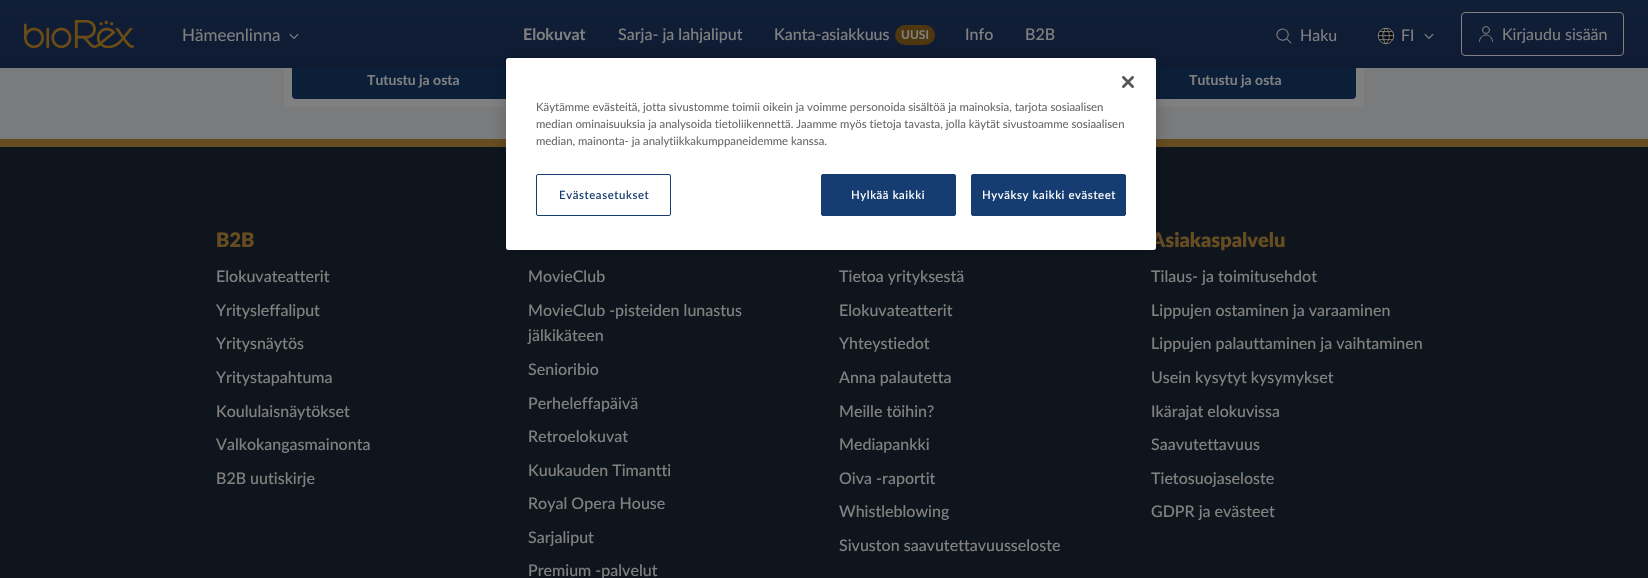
#include "include/core/SkBlurTypes.h"
#include "include/core/SkCanvas.h"
#include "include/core/SkData.h"
#include "include/core/SkFont.h"
#include "include/core/SkFontMgr.h"
#include "include/core/SkImage.h"
#include "include/core/SkMaskFilter.h"
#include "include/core/SkPaint.h"
#include "include/core/SkPathBuilder.h"
#include "include/core/SkTextBlob.h"
#include "include/effects/SkDashPathEffect.h"
#include "include/effects/SkGradientShader.h"
#include "include/utils/SkParsePath.h"

extern sk_sp<SkFontMgr> fontMgr;

void draw(SkCanvas* canvas) {
    SkPaint p;
    p.setAntiAlias(true);
    auto font = [&](const char* family, int weight, float size, bool italic = false) {
        SkFontStyle style(weight, SkFontStyle::kNormal_Width,
            italic ? SkFontStyle::kItalic_Slant : SkFontStyle::kUpright_Slant);
        SkFont result(fontMgr->matchFamilyStyle(family, style), size);
        result.setSubpixel(true);
        return result;
    };
    auto drawTracked = [&](const char* s, float x, float y, const SkFont& font, const SkPaint& ink, float letter, float word) {
        std::vector<SkGlyphID> glyphs(font.countText(s, strlen(s), SkTextEncoding::kUTF8));
        std::vector<float> xs(glyphs.size());
        font.textToGlyphs(s, strlen(s), SkTextEncoding::kUTF8, glyphs);
        font.getXPos(glyphs, xs, x);
        float extra = 0;
        for (size_t i = 0; i < glyphs.size(); i++) {
            xs[i] += extra;
            extra += letter + word * (glyphs[i] == font.unicharToGlyph(' '));
        }
        canvas->drawTextBlob(SkTextBlob::MakeFromPosHGlyphs(glyphs, xs, y, font), 0, 0, ink);
    };
    auto drawPhoto = [&](const char* path, float l, float t, float r, float b) {
        auto image = SkImages::DeferredFromEncodedData(SkData::MakeFromFileName(path));
        canvas->drawImageRect(image, SkRect::MakeLTRB(l, t, r, b), SkSamplingOptions());
    };
    canvas->clear(0xFF0E151D);
    p.setColor(0xFF7A7B7D);
    canvas->drawRect(SkRect::MakeLTRB(0, 68, 1648, 139), p);
    p.setColor(0xFF808080);
    canvas->drawRoundRect(SkRect::MakeLTRB(284, -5, 542, 107), 5, 5, p);
    p.setColor(0xFF0B1F39);
    canvas->drawRoundRect(SkRect::MakeLTRB(292, 61, 534, 99), 4, 4, p);
    p.setColor(0xFF808080);
    canvas->drawRoundRect(SkRect::MakeLTRB(1106, -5, 1364, 107), 5, 5, p);
    p.setColor(0xFF0B1F39);
    canvas->drawRoundRect(SkRect::MakeLTRB(1114, 61, 1356, 99), 4, 4, p);
    {
        const SkColor colors[] = {0xFF111E37, 0xFF0E1B33};
        const float stops[] = {0, 1};
        const SkPoint ends[] = {{824, 0}, {824, 68}};
        p.setShader(SkGradientShader::MakeLinear(ends, colors, stops, 2, SkTileMode::kClamp));
        p.setAlpha(255);
    }
    canvas->drawRect(SkRect::MakeLTRB(0, 0, 1648, 68), p);
    drawPhoto("media/1.png", 24, 20, 134, 48);
    auto font1 = font("Lato", 400, 17);
    p.setShader(nullptr);
    p.setColor(0xFF808080);
    canvas->drawString("Hämeenlinna", 182, 41, font1, p);
    drawPhoto("media/2.png", 289, 33, 299, 39);
    auto font2 = font("Lato", 700, 16);
    canvas->drawString("Elokuvat", 523, 40, font2, p);
    auto font3 = font("Lato", 500, 16);
    canvas->drawString("Sarja- ja lahjaliput", 618, 40, font3, p);
    canvas->drawString("Kanta-asiakkuus", 774, 40, font3, p);
    p.setColor(0xFF4E370E);
    canvas->drawRoundRect(SkRect::MakeLTRB(895, 25, 935, 45), 10, 10, p);
    auto font4 = font("Lato", 700, 12);
    p.setColor(0xFF808080);
    canvas->drawString("UUSI", 901, 39, font4, p);
    canvas->drawString("Info", 965, 40, font3, p);
    canvas->drawString("B2B", 1025, 40, font3, p);
    drawPhoto("media/3.png", 1276, 28, 1292, 44);
    auto font5 = font("Lato", 400, 16);
    canvas->drawString("Haku", 1300, 41, font5, p);
    drawPhoto("media/4.png", 1377, 27, 1395, 45);
    canvas->drawString("FI", 1401, 41, font5, p);
    drawPhoto("media/2.png", 1424, 33, 1434, 39);
    p.setStyle(SkPaint::kStroke_Style);
    p.setStrokeWidth(1);
    canvas->drawRoundRect(SkRect::MakeLTRB(1461.5f, 12.5f, 1623.5f, 55.5f), 3.5f, 3.5f, p);
    drawPhoto("media/5.png", 1479, 26, 1493, 42);
    p.setStyle(SkPaint::kFill_Style);
    canvas->drawString("Kirjaudu sisään", 1502, 40, font5, p);
    auto font6 = font("Lato", 700, 14);
    canvas->drawString("Tutustu ja osta", 367, 85, font6, p);
    canvas->drawString("Tutustu ja osta", 1189, 85, font6, p);
    p.setColor(0xFF674C21);
    canvas->drawRect(SkRect::MakeLTRB(0, 139, 1648, 147), p);
    auto font7 = font("Lato", 900, 20);
    canvas->drawString("B2B", 216, 247, font7, p);
    p.setColor(0xFF808080);
    {
        const struct { const char* s; float x, y; } items[] = {
            {"Elokuvateatterit", 216, 282},
            {"Yritysleffaliput", 216, 316},
            {"Yritysnäytös", 216, 349},
            {"Yritystapahtuma", 216, 383},
            {"Koululaisnäytökset", 216, 417},
            {"Valkokangasmainonta", 216, 450},
            {"B2B uutiskirje", 216, 484},
            {"MovieClub", 528, 282},
            {"MovieClub -pisteiden lunastus", 528, 316},
            {"jälkikäteen", 528, 341},
            {"Senioribio", 528, 375},
            {"Perheleffapäivä", 528, 409},
            {"Retroelokuvat", 528, 442},
            {"Kuukauden Timantti", 528, 476},
            {"Royal Opera House", 528, 509},
            {"Sarjaliput", 528, 543},
            {"Premium -palvelut", 528, 576},
            {"Tietoa yrityksestä", 839, 282},
            {"Elokuvateatterit", 839, 316},
            {"Yhteystiedot", 839, 349},
            {"Anna palautetta", 839, 383},
            {"Meille töihin?", 839, 417},
            {"Mediapankki", 839, 450},
            {"Oiva -raportit", 839, 484},
            {"Whistleblowing", 839, 517},
            {"Sivuston saavutettavuusseloste", 839, 551},
        };
        for (auto [s, x, y] : items) {
            canvas->drawString(s, x, y, font3, p);
        }
    }
    p.setColor(0xFF674C21);
    canvas->drawString("Asiakaspalvelu", 1151, 247, font7, p);
    p.setColor(0xFF808080);
    {
        const struct { const char* s; float x, y; } items[] = {
            {"Tilaus- ja toimitusehdot", 1151, 282},
            {"Lippujen ostaminen ja varaaminen", 1151, 316},
            {"Lippujen palauttaminen ja vaihtaminen", 1151, 349},
            {"Usein kysytyt kysymykset", 1151, 383},
            {"Ikärajat elokuvissa", 1151, 417},
            {"Saavutettavuus", 1151, 450},
            {"Tietosuojaseloste", 1151, 484},
            {"GDPR ja evästeet", 1151, 517},
        };
        for (auto [s, x, y] : items) {
            canvas->drawString(s, x, y, font3, p);
        }
    }
    p.setColor(0x33000000);
    p.setMaskFilter(SkMaskFilter::MakeBlur(kNormal_SkBlurStyle, 9));
    canvas->drawRoundRect(SkRect::MakeLTRB(506, 58, 1156, 250), 2.5f, 2.5f, p);
    p.setMaskFilter(nullptr);
    p.setColor(0xFFFFFFFF);
    canvas->drawRoundRect(SkRect::MakeLTRB(506, 58, 1156, 250), 2.5f, 2.5f, p);
    drawPhoto("media/6.png", 1122, 76, 1134, 88);
    auto font8 = font("Lato", 400, 11.38f);
    p.setColor(0xFF696969);
    {
        const struct { const char* s; float x, y; } items[] = {
            {"Käytämme evästeitä, jotta sivustomme toimii oikein ja voimme personoida sisältöä ja mainoksia, tarjota sosiaalisen", 536, 111},
            {"median ominaisuuksia ja analysoida tietoliikennettä. Jaamme myös tietoja tavasta, jolla käytät sivustoamme sosiaalisen", 536, 128},
            {"median, mainonta- ja analytiikkakumppaneidemme kanssa.", 536, 145},
        };
        for (auto [s, x, y] : items) {
            canvas->drawString(s, x, y, font8, p);
        }
    }
    p.setStyle(SkPaint::kStroke_Style);
    p.setColor(0xFF163D71);
    canvas->drawRoundRect(SkRect::MakeLTRB(536.5f, 174.5f, 670.5f, 215.5f), 1.5f, 1.5f, p);
    auto font9 = font("Lato", 500, 11.38f);
    p.setStyle(SkPaint::kFill_Style);
    drawTracked("Evästeasetukset", 559, 199, font9, p, 0.6f, 0);
    canvas->drawRoundRect(SkRect::MakeLTRB(821.5f, 174.5f, 955.5f, 215.5f), 1.5f, 1.5f, p);
    p.setStyle(SkPaint::kStroke_Style);
    canvas->drawRoundRect(SkRect::MakeLTRB(821.5f, 174.5f, 955.5f, 215.5f), 1.5f, 1.5f, p);
    p.setStyle(SkPaint::kFill_Style);
    p.setColor(0xFFFFFFFF);
    drawTracked("Hylkää kaikki", 851, 199, font9, p, 0.6f, 0);
    p.setColor(0xFF163D71);
    canvas->drawRoundRect(SkRect::MakeLTRB(971.5f, 174.5f, 1125.5f, 215.5f), 1.5f, 1.5f, p);
    p.setStyle(SkPaint::kStroke_Style);
    canvas->drawRoundRect(SkRect::MakeLTRB(971.5f, 174.5f, 1125.5f, 215.5f), 1.5f, 1.5f, p);
    p.setStyle(SkPaint::kFill_Style);
    p.setColor(0xFFFFFFFF);
    drawTracked("Hyväksy kaikki evästeet", 982, 199, font9, p, 0.6f, 0);
}
